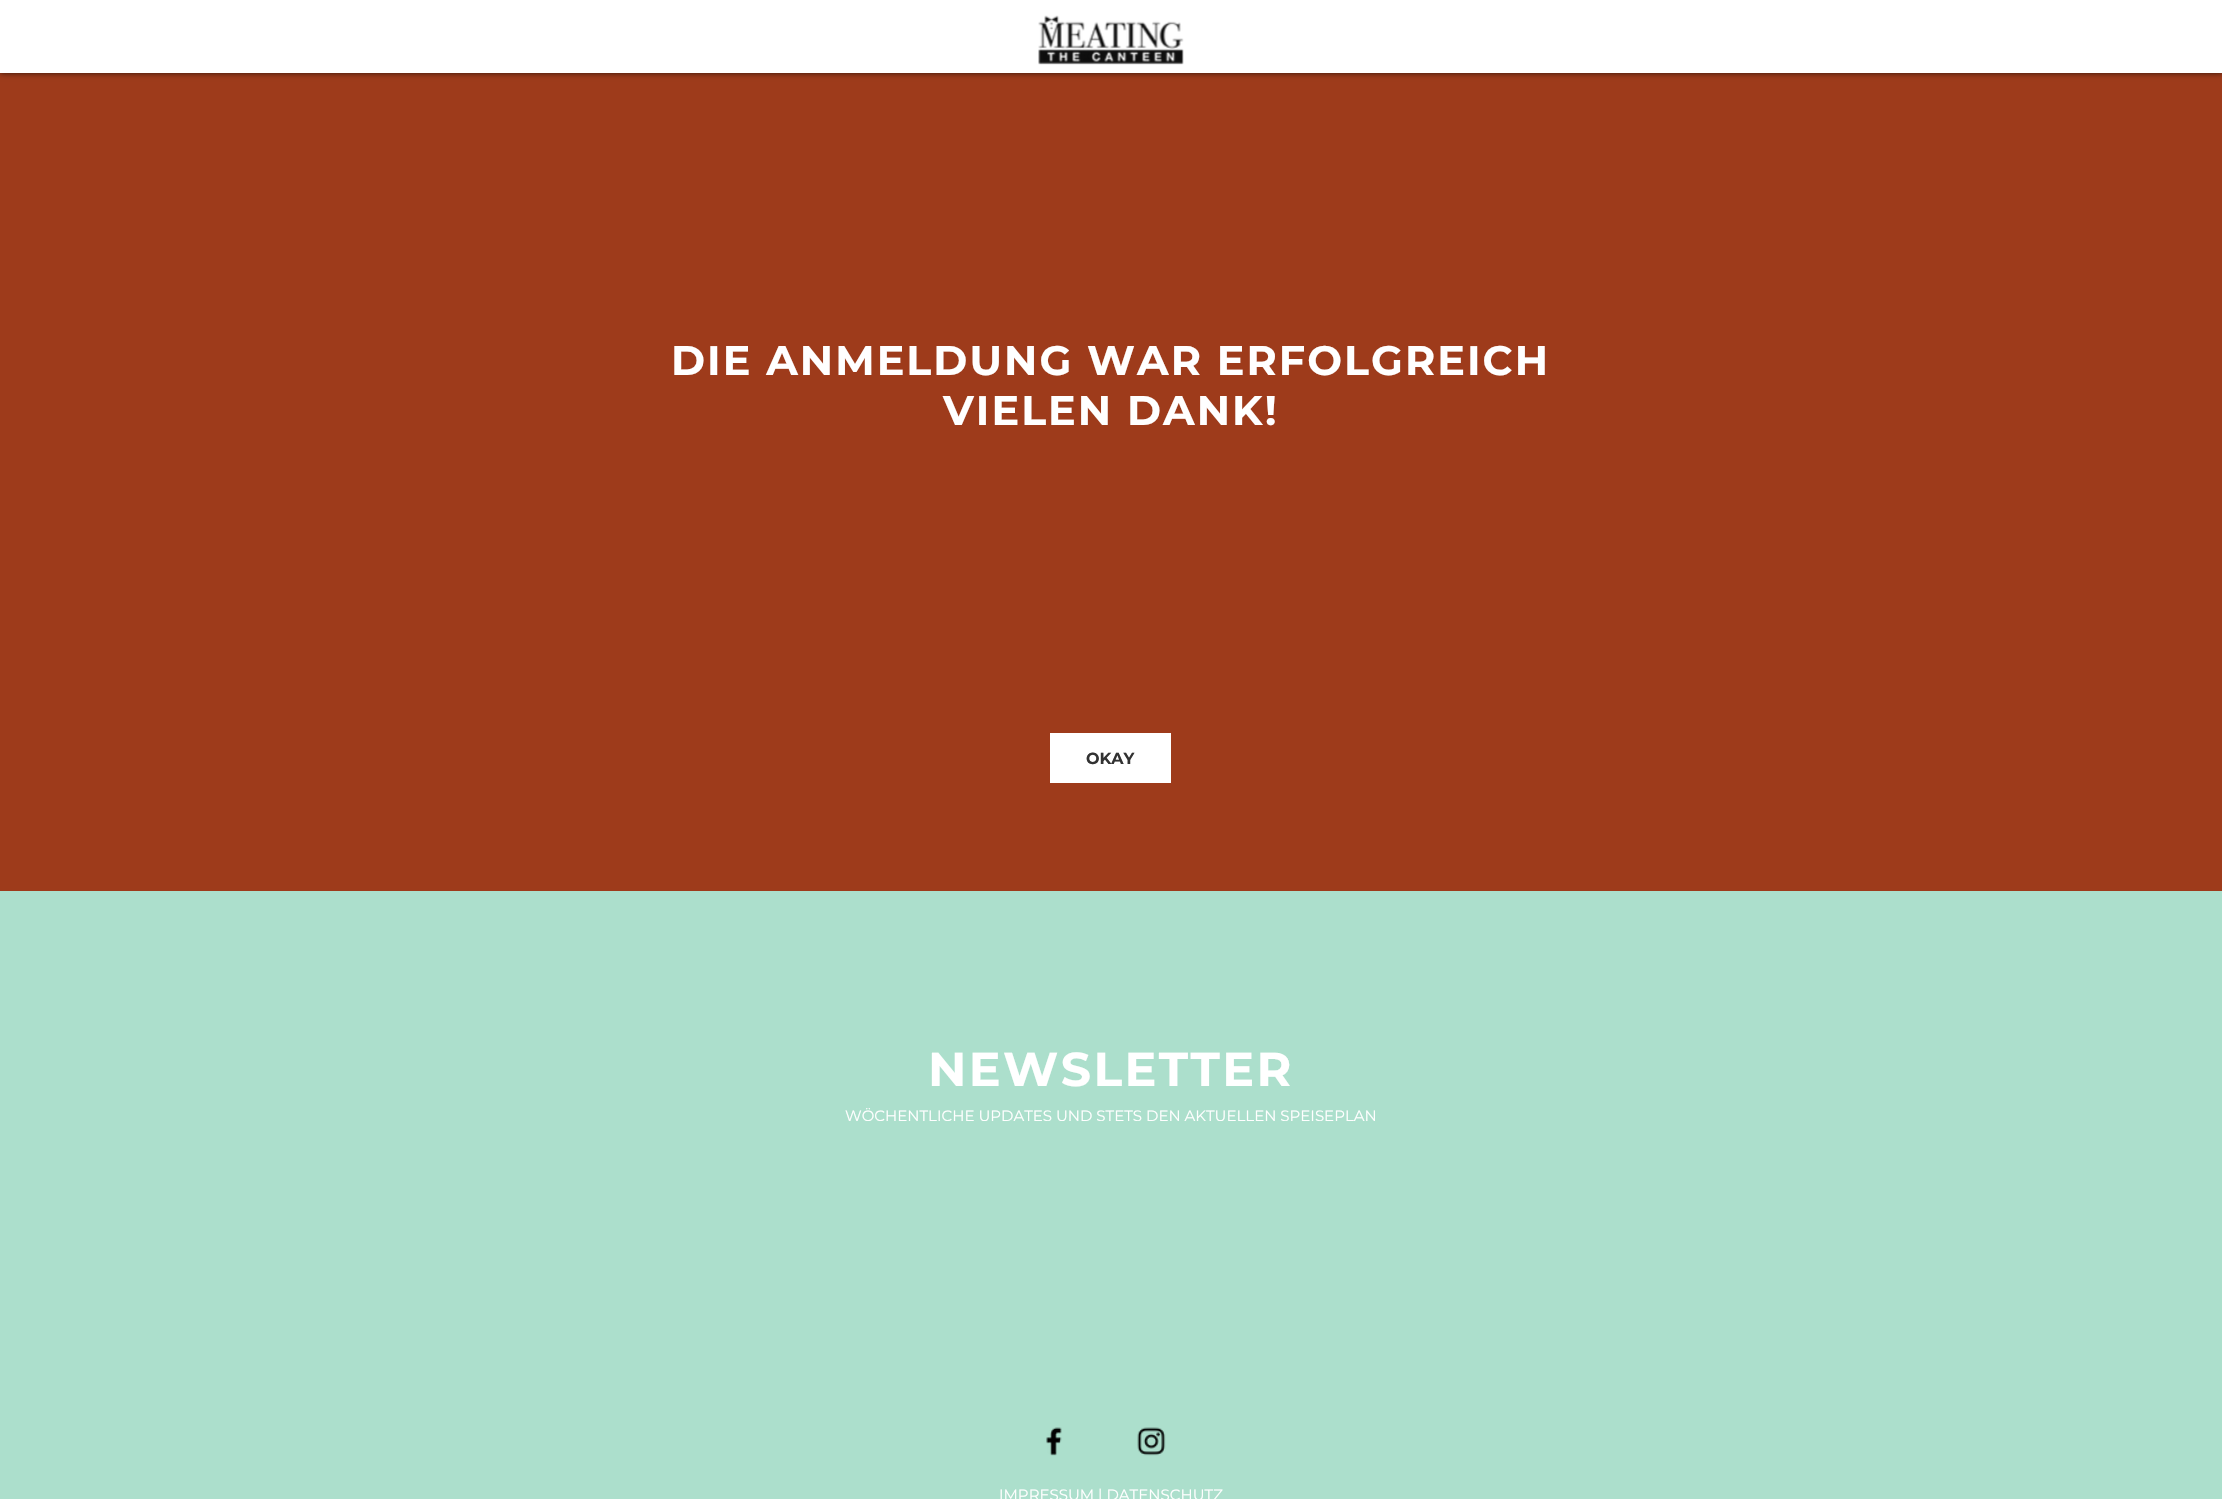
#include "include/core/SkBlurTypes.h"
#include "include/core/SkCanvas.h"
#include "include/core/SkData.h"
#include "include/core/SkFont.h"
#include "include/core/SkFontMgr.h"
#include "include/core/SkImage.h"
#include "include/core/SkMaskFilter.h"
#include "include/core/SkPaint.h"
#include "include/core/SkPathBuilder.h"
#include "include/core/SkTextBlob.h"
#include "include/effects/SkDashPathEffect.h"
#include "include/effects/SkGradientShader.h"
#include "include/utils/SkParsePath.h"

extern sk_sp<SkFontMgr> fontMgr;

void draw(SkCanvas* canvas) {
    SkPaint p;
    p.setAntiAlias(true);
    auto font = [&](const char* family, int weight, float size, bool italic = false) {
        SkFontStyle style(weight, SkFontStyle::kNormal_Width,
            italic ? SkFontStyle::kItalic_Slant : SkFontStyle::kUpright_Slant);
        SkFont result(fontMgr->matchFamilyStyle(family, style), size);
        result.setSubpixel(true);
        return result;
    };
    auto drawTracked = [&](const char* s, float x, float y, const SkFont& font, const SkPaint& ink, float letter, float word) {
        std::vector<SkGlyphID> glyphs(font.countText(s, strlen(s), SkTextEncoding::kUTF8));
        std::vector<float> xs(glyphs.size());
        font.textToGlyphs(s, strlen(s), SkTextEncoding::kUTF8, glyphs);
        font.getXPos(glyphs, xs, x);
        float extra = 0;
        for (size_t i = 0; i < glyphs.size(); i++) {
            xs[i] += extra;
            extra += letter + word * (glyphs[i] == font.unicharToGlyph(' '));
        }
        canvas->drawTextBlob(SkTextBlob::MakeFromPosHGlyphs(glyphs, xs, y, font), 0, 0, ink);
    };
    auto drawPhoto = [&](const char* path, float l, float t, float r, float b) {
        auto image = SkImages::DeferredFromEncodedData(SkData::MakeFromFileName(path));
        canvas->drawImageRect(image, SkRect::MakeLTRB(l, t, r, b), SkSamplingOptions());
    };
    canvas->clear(0xFF9E3B1B);
    p.setColor(0xB3000000);
    p.setMaskFilter(SkMaskFilter::MakeBlur(kNormal_SkBlurStyle, 3));
    canvas->drawRect(SkRect::MakeLTRB(0, 0, 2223, 73), p);
    p.setMaskFilter(nullptr);
    p.setColor(0xFFFFFFFF);
    canvas->drawRect(SkRect::MakeLTRB(0, 0, 2222, 73), p);
    drawPhoto("media/1.png", 1038, 15, 1184, 65);
    auto font1 = font("Montserrat", 700, 41.25f);
    drawTracked("DIE ANMELDUNG WAR ERFOLGREICH", 671, 375, font1, p, 2.05f, 0);
    drawTracked("VIELEN DANK!", 943, 425, font1, p, 2.05f, 0);
    canvas->drawRect(SkRect::MakeLTRB(1050, 733, 1171, 783), p);
    auto font2 = font("Montserrat", 700, 16);
    p.setColor(0xFF323232);
    canvas->drawString("OKAY", 1086, 764, font2, p);
    p.setColor(0xFFACDFCC);
    canvas->drawRect(SkRect::MakeLTRB(0, 891, 2222, 1499), p);
    auto font3 = font("Montserrat", 700, 47.5f);
    p.setColor(0xFFFFFFFF);
    drawTracked("NEWSLETTER", 928, 1086, font3, p, 2.4f, 0);
    auto font4 = font("Montserrat", 400, 15);
    canvas->drawString("WÖCHENTLICHE UPDATES UND STETS DEN AKTUELLEN SPEISEPLAN", 845, 1121, font4, p);
    drawPhoto("media/2.png", 1046, 1427, 1062, 1456);
    drawPhoto("media/3.png", 1137, 1427, 1166, 1456);
    canvas->drawString("IMPRESSUM | DATENSCHUTZ", 999, 1500, font4, p);
}
